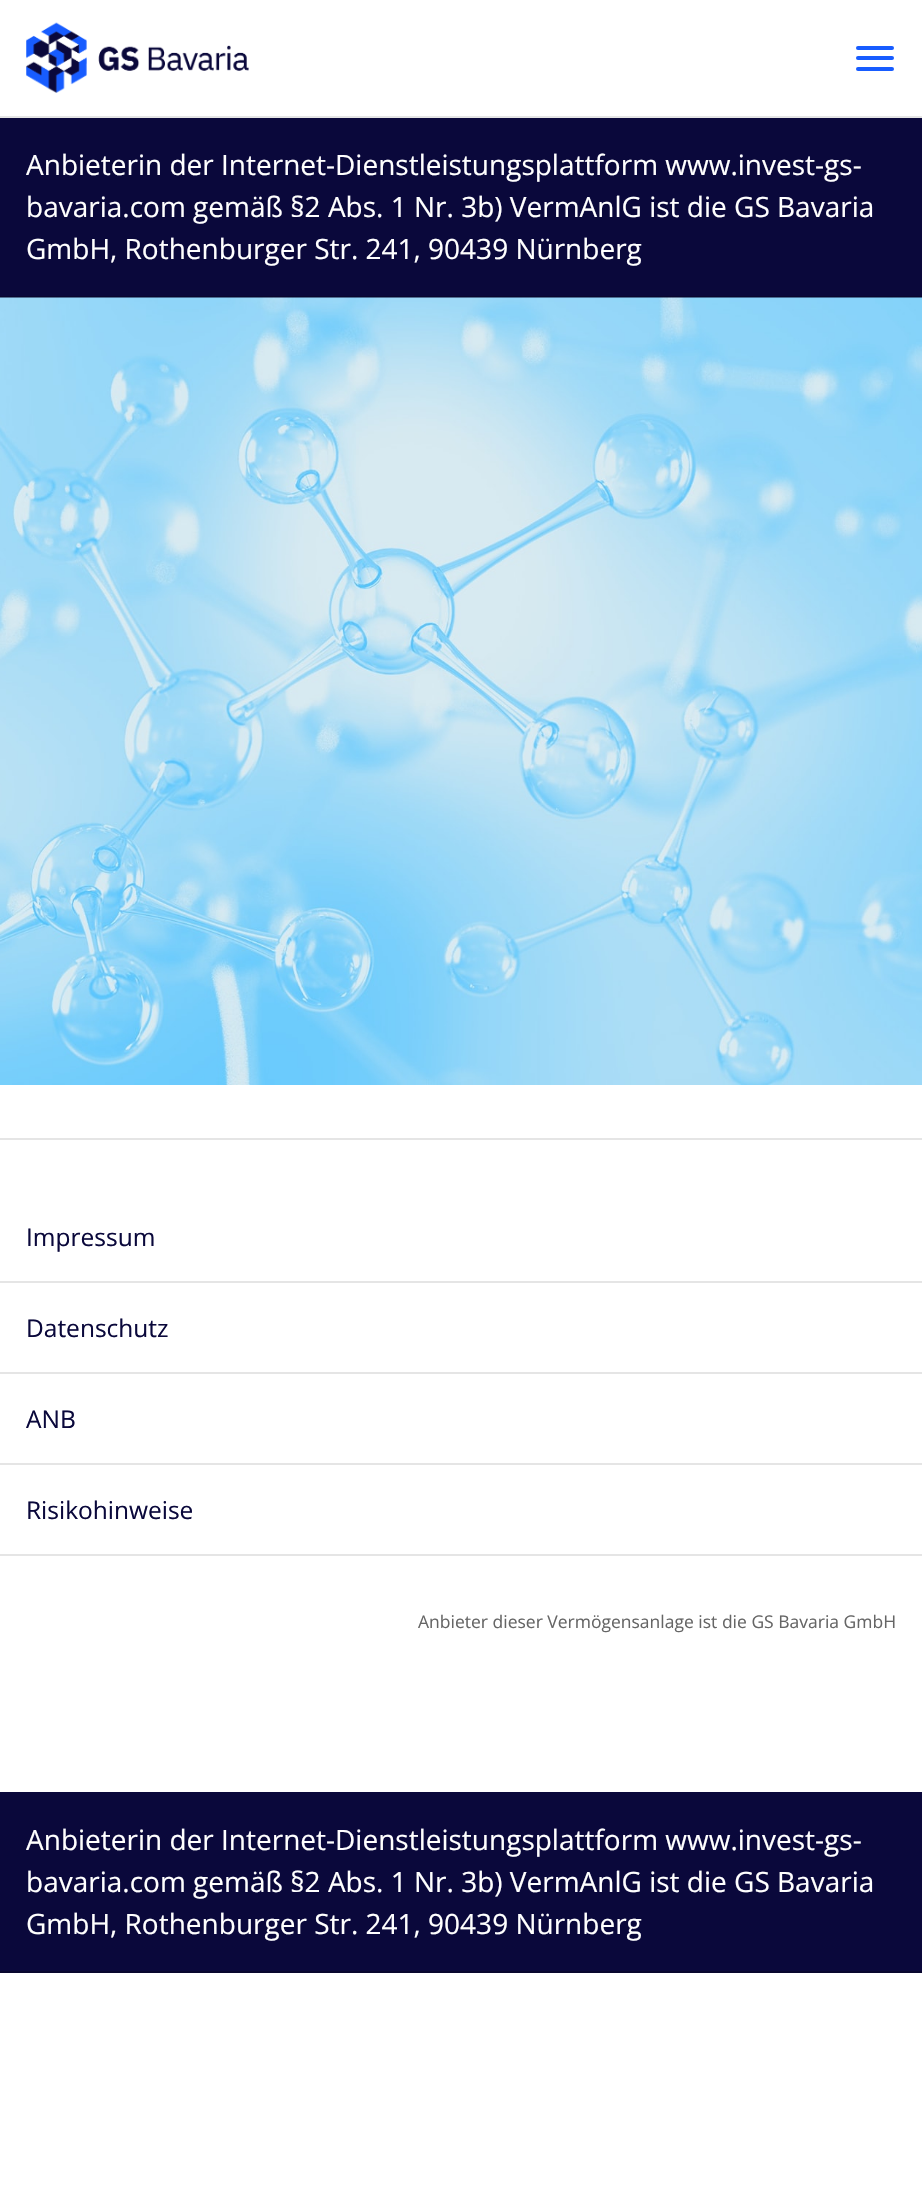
#include "include/core/SkBlurTypes.h"
#include "include/core/SkCanvas.h"
#include "include/core/SkData.h"
#include "include/core/SkFont.h"
#include "include/core/SkFontMgr.h"
#include "include/core/SkImage.h"
#include "include/core/SkMaskFilter.h"
#include "include/core/SkPaint.h"
#include "include/core/SkPathBuilder.h"
#include "include/core/SkTextBlob.h"
#include "include/effects/SkDashPathEffect.h"
#include "include/effects/SkGradientShader.h"
#include "include/utils/SkParsePath.h"

extern sk_sp<SkFontMgr> fontMgr;

void draw(SkCanvas* canvas) {
    SkPaint p;
    p.setAntiAlias(true);
    auto font = [&](const char* family, int weight, float size, bool italic = false) {
        SkFontStyle style(weight, SkFontStyle::kNormal_Width,
            italic ? SkFontStyle::kItalic_Slant : SkFontStyle::kUpright_Slant);
        SkFont result(fontMgr->matchFamilyStyle(family, style), size);
        result.setSubpixel(true);
        return result;
    };
    auto drawPhoto = [&](const char* path, float l, float t, float r, float b) {
        auto image = SkImages::DeferredFromEncodedData(SkData::MakeFromFileName(path));
        canvas->drawImageRect(image, SkRect::MakeLTRB(l, t, r, b), SkSamplingOptions());
    };
    canvas->clear(0xFFFFFFFF);
    p.setColor(0xFFE5E5E5);
    canvas->drawRect(SkRect::MakeLTRB(0, 116, 922, 118), p);
    drawPhoto("media/1.png", 26, 22, 249, 93);
    p.setColor(0xFF175CFF);
    canvas->drawRoundRect(SkRect::MakeLTRB(856, 46, 894, 50), 2, 2, p);
    canvas->drawRoundRect(SkRect::MakeLTRB(856, 56, 894, 60), 2, 2, p);
    canvas->drawRoundRect(SkRect::MakeLTRB(856, 67, 894, 71), 2, 2, p);
    p.setColor(0xFF0A083B);
    canvas->drawRect(SkRect::MakeLTRB(0, 118, 922, 296), p);
    p.setColor(0xFF08062E);
    canvas->drawRect(SkRect::MakeLTRB(0, 296, 922, 298), p);
    auto font1 = font("Open Sans", 400, 28);
    p.setColor(0xFFFFFFFF);
    {
        const struct { const char* s; float x, y; } items[] = {
            {"Anbieterin der Internet-Dienstleistungsplattform www.invest-gs-", 26, 175},
            {"bavaria.com gemäß §2 Abs. 1 Nr. 3b) VermAnlG ist die GS Bavaria", 26, 217},
            {"GmbH, Rothenburger Str. 241, 90439 Nürnberg", 26, 259},
        };
        for (auto [s, x, y] : items) {
            canvas->drawString(s, x, y, font1, p);
        }
    }
    drawPhoto("media/2.png", 0, 297, 922, 1085);
    p.setColor(0xFFE5E5E5);
    canvas->drawRect(SkRect::MakeLTRB(0, 1138, 922, 1140), p);
    canvas->drawRect(SkRect::MakeLTRB(0, 1281, 922, 1283), p);
    auto font2 = font("Open Sans", 400, 24.5f);
    p.setColor(0xFF0A083B);
    canvas->drawString("Impressum", 26, 1246, font2, p);
    p.setColor(0xFFE5E5E5);
    canvas->drawRect(SkRect::MakeLTRB(0, 1372, 922, 1374), p);
    p.setColor(0xFF0A083B);
    canvas->drawString("Datenschutz", 26, 1337, font2, p);
    p.setColor(0xFFE5E5E5);
    canvas->drawRect(SkRect::MakeLTRB(0, 1463, 922, 1465), p);
    p.setColor(0xFF0A083B);
    canvas->drawString("ANB", 26, 1428, font2, p);
    p.setColor(0xFFE5E5E5);
    canvas->drawRect(SkRect::MakeLTRB(0, 1554, 922, 1556), p);
    p.setColor(0xFF0A083B);
    canvas->drawString("Risikohinweise", 26, 1519, font2, p);
    auto font3 = font("Open Sans", 400, 17.5f);
    p.setColor(0xFF666666);
    canvas->drawString("Anbieter dieser Vermögensanlage ist die GS Bavaria GmbH", 418, 1628, font3, p);
    p.setColor(0xFF0A083B);
    canvas->drawRect(SkRect::MakeLTRB(0, 1792, 922, 1971), p);
    p.setColor(0xFF08062E);
    canvas->drawRect(SkRect::MakeLTRB(0, 1971, 922, 1973), p);
    p.setColor(0xFFFFFFFF);
    {
        const struct { const char* s; float x, y; } items[] = {
            {"Anbieterin der Internet-Dienstleistungsplattform www.invest-gs-", 26, 1850},
            {"bavaria.com gemäß §2 Abs. 1 Nr. 3b) VermAnlG ist die GS Bavaria", 26, 1892},
            {"GmbH, Rothenburger Str. 241, 90439 Nürnberg", 26, 1934},
        };
        for (auto [s, x, y] : items) {
            canvas->drawString(s, x, y, font1, p);
        }
    }
}
